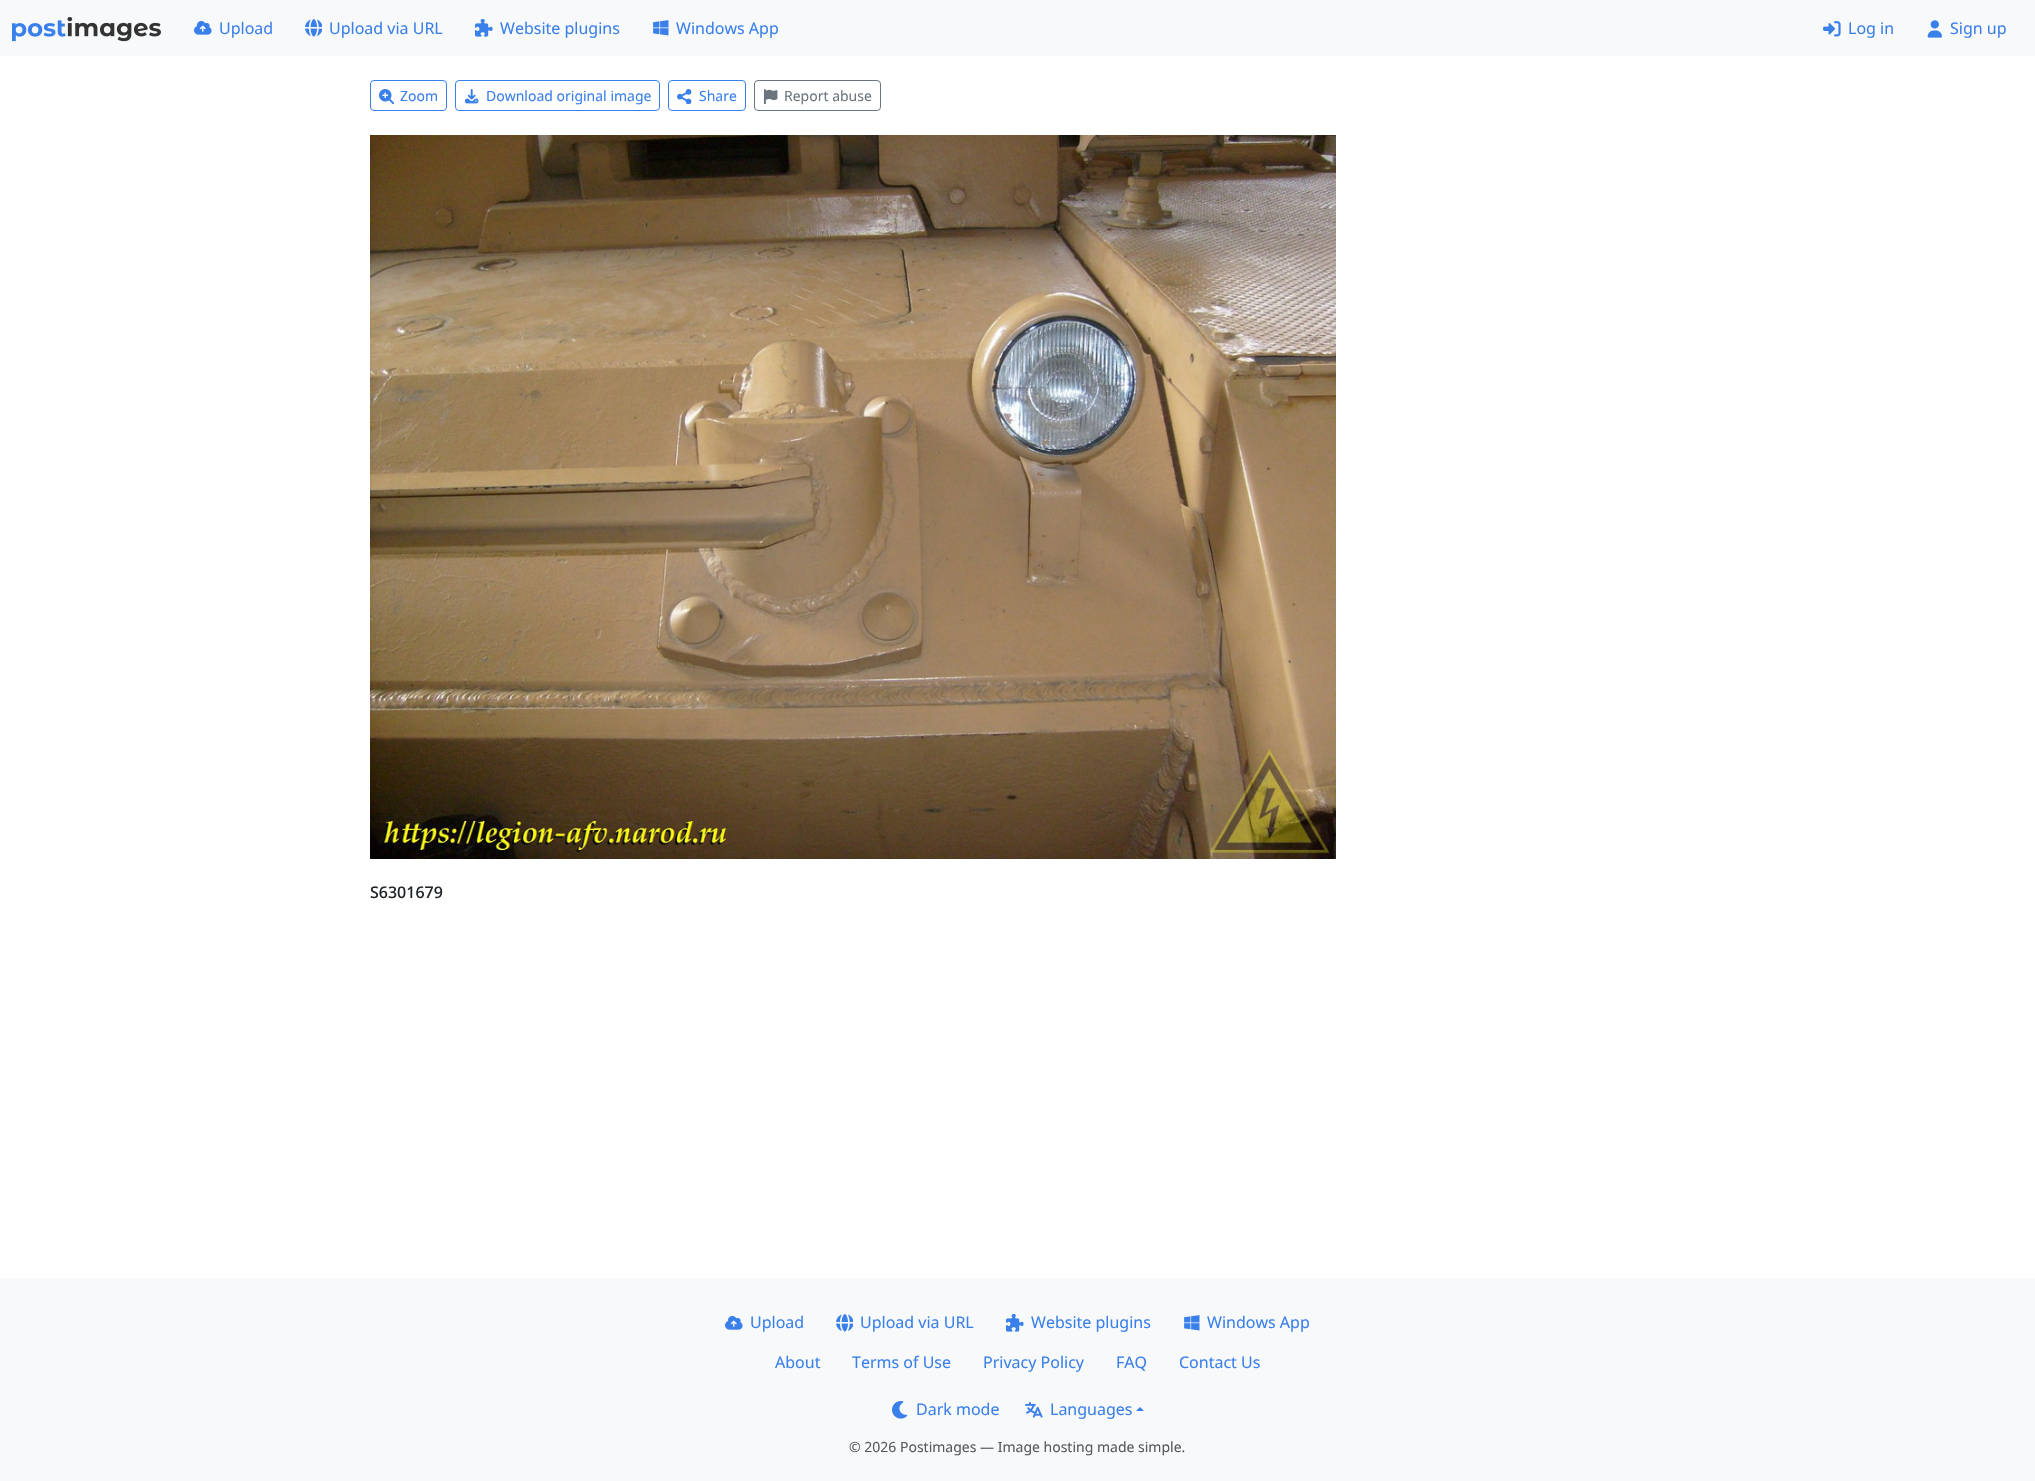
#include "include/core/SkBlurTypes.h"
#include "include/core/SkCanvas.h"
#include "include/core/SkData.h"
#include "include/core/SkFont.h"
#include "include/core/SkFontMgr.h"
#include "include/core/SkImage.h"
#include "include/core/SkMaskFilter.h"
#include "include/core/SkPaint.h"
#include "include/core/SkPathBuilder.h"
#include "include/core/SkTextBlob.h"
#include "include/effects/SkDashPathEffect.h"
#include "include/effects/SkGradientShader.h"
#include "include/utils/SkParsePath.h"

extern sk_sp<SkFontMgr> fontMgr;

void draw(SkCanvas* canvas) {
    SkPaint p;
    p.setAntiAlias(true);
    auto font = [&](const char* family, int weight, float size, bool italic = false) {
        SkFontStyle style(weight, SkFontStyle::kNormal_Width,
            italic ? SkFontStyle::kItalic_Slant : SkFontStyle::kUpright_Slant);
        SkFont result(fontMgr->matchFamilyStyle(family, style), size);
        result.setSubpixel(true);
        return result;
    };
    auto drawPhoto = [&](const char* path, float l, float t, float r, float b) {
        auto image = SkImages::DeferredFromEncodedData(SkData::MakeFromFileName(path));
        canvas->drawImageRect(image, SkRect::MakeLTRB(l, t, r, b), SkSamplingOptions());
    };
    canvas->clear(0xFFFFFFFF);
    p.setColor(0xFFF8F9FA);
    canvas->drawRect(SkRect::MakeLTRB(0, 0, 2035, 56), p);
    drawPhoto("media/1.png", 12, 17, 161, 42);
    drawPhoto("media/2.png", 194, 21, 212, 35);
    auto font1 = font("Noto Sans", 400, 16);
    p.setColor(0xFF3A80EA);
    canvas->drawString("Upload", 219, 34, font1, p);
    drawPhoto("media/3.png", 305, 19, 322, 37);
    canvas->drawString("Upload via URL", 329, 34, font1, p);
    drawPhoto("media/4.png", 475, 19, 493, 37);
    canvas->drawString("Website plugins", 500, 34, font1, p);
    drawPhoto("media/5.png", 653, 20, 669, 36);
    canvas->drawString("Windows App", 676, 34, font1, p);
    drawPhoto("media/6.png", 1823, 21, 1841, 37);
    canvas->drawString("Log in", 1848, 34, font1, p);
    drawPhoto("media/7.png", 1927, 20, 1942, 38);
    canvas->drawString("Sign up", 1950, 34, font1, p);
    p.setStyle(SkPaint::kStroke_Style);
    p.setStrokeWidth(1);
    canvas->drawRoundRect(SkRect::MakeLTRB(370.5f, 80.5f, 446.5f, 110.5f), 3.5f, 3.5f, p);
    drawPhoto("media/8.png", 379, 89, 394, 104);
    auto font2 = font("Noto Sans", 400, 14);
    p.setStyle(SkPaint::kFill_Style);
    canvas->drawString("Zoom", 400, 101, font2, p);
    p.setStyle(SkPaint::kStroke_Style);
    canvas->drawRoundRect(SkRect::MakeLTRB(455.5f, 80.5f, 659.5f, 110.5f), 3.5f, 3.5f, p);
    drawPhoto("media/9.png", 464, 89, 479, 104);
    p.setStyle(SkPaint::kFill_Style);
    canvas->drawString("Download original image", 486, 101, font2, p);
    p.setStyle(SkPaint::kStroke_Style);
    canvas->drawRoundRect(SkRect::MakeLTRB(668.5f, 80.5f, 745.5f, 110.5f), 3.5f, 3.5f, p);
    drawPhoto("media/10.png", 677, 89, 692, 104);
    p.setStyle(SkPaint::kFill_Style);
    canvas->drawString("Share", 699, 101, font2, p);
    p.setStyle(SkPaint::kStroke_Style);
    p.setColor(0xFF6C757D);
    canvas->drawRoundRect(SkRect::MakeLTRB(754.5f, 80.5f, 880.5f, 110.5f), 3.5f, 3.5f, p);
    drawPhoto("media/11.png", 763, 89, 778, 104);
    p.setStyle(SkPaint::kFill_Style);
    canvas->drawString("Report abuse", 784, 101, font2, p);
    drawPhoto("media/12.png", 370, 135, 1336, 859);
    auto font3 = font("Noto Sans", 500, 16);
    p.setColor(0xFF212529);
    canvas->drawString("S6301679", 370, 898, font3, p);
    p.setColor(0xFFF8F9FA);
    canvas->drawRect(SkRect::MakeLTRB(0, 1278, 2035, 1481), p);
    drawPhoto("media/2.png", 725, 1316, 743, 1330);
    p.setColor(0xFF3A80EA);
    canvas->drawString("Upload", 750, 1328, font1, p);
    drawPhoto("media/3.png", 836, 1314, 853, 1332);
    canvas->drawString("Upload via URL", 860, 1328, font1, p);
    drawPhoto("media/4.png", 1006, 1314, 1024, 1332);
    canvas->drawString("Website plugins", 1031, 1328, font1, p);
    drawPhoto("media/5.png", 1184, 1315, 1200, 1331);
    {
        const struct { const char* s; float x, y; } items[] = {
            {"Windows App", 1207, 1328},
            {"About", 775, 1368},
            {"Terms of Use", 852, 1368},
            {"Privacy Policy", 983, 1368},
            {"FAQ", 1116, 1368},
            {"Contact Us", 1179, 1368},
        };
        for (auto [s, x, y] : items) {
            canvas->drawString(s, x, y, font1, p);
        }
    }
    drawPhoto("media/13.png", 892, 1401, 908, 1419);
    canvas->drawString("Dark mode", 916, 1415, font1, p);
    drawPhoto("media/14.png", 1025, 1402, 1043, 1418);
    canvas->drawString("Languages", 1050, 1415, font1, p);
    canvas->drawPath(SkPathBuilder().moveTo(1144, 1411).lineTo(1136, 1411).lineTo(1140, 1407).close().detach(), p);
    p.setColor(0xFF575A5D);
    canvas->drawString("© 2026 Postimages — Image hosting made simple.", 849, 1452, font2, p);
}
